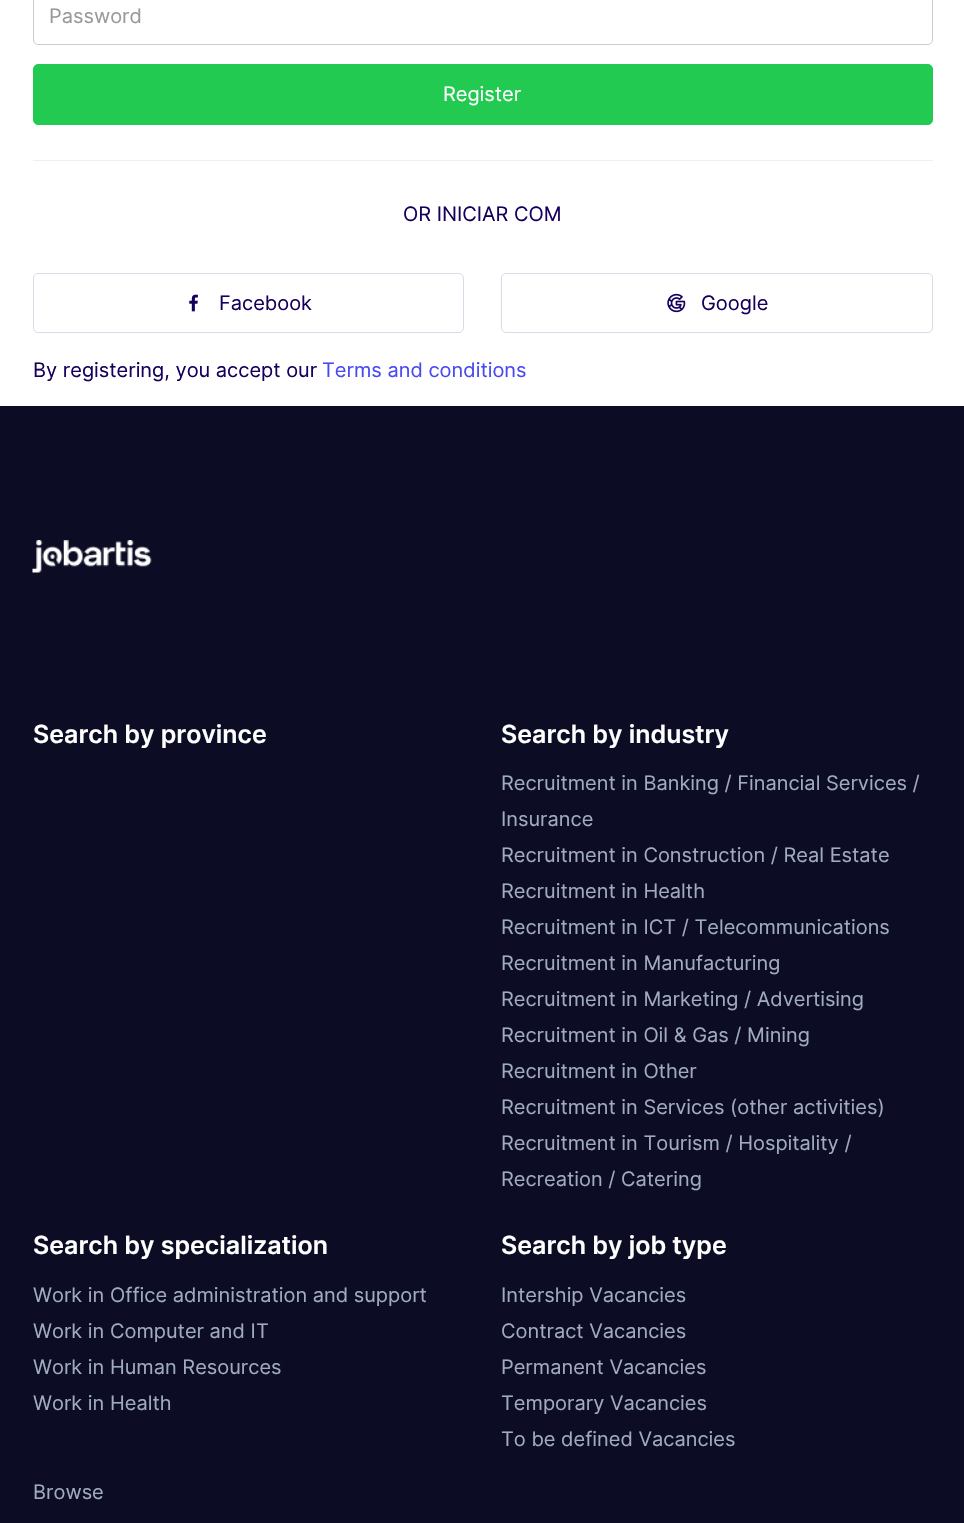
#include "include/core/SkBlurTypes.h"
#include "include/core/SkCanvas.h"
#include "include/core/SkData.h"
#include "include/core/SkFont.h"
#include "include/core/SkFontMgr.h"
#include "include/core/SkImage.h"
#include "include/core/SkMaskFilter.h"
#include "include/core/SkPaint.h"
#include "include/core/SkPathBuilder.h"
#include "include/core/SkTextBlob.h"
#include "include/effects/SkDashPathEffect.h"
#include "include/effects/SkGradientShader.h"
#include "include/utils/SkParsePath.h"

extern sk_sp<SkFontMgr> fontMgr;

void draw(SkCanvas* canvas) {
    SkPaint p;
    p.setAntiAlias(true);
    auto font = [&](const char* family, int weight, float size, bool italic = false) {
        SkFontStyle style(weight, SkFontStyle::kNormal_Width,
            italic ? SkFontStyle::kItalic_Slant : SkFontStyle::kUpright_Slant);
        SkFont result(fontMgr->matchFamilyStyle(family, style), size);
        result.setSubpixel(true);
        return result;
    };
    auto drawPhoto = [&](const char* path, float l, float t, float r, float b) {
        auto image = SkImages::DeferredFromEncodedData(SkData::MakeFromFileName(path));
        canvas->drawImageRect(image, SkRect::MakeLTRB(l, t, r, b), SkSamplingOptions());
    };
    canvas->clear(0xFFFFFFFF);
    p.setStyle(SkPaint::kStroke_Style);
    p.setStrokeWidth(1);
    p.setColor(0xFFCCCCCC);
    canvas->drawRoundRect(SkRect::MakeLTRB(33.5f, -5.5f, 932.5f, 44.5f), 4.5f, 4.5f, p);
    auto font1 = font("Inter", 400, 20);
    p.setStyle(SkPaint::kFill_Style);
    p.setColor(0xFF999999);
    canvas->drawString("Password", 49, 23, font1, p);
    p.setColor(0xFF22CA51);
    canvas->drawRoundRect(SkRect::MakeLTRB(33.5f, 64.5f, 932.5f, 124.5f), 4.5f, 4.5f, p);
    p.setStyle(SkPaint::kStroke_Style);
    canvas->drawRoundRect(SkRect::MakeLTRB(33.5f, 64.5f, 932.5f, 124.5f), 4.5f, 4.5f, p);
    p.setStyle(SkPaint::kFill_Style);
    p.setColor(0xFFFFFFFF);
    canvas->drawString("Register", 443, 101, font1, p);
    p.setColor(0xFFEBEFF7);
    canvas->drawRect(SkRect::MakeLTRB(33, 160, 933, 161), p);
    p.setColor(0xFF17005C);
    canvas->drawString("OR INICIAR COM", 403, 221, font1, p);
    p.setStyle(SkPaint::kStroke_Style);
    p.setColor(0xFFD6DCE8);
    canvas->drawRoundRect(SkRect::MakeLTRB(33.5f, 273.5f, 463.5f, 332.5f), 4.5f, 4.5f, p);
    drawPhoto("media/1.png", 189, 294, 198, 312);
    p.setStyle(SkPaint::kFill_Style);
    p.setColor(0xFF17005C);
    canvas->drawString("Facebook", 219, 310, font1, p);
    p.setStyle(SkPaint::kStroke_Style);
    p.setColor(0xFFD6DCE8);
    canvas->drawRoundRect(SkRect::MakeLTRB(501.5f, 273.5f, 932.5f, 332.5f), 4.5f, 4.5f, p);
    drawPhoto("media/2.png", 667, 293, 686, 313);
    p.setStyle(SkPaint::kFill_Style);
    p.setColor(0xFF17005C);
    canvas->drawString("Google", 701, 310, font1, p);
    canvas->drawString("By registering, you accept our", 33, 377, font1, p);
    p.setColor(0xFF4949F2);
    canvas->drawString("Terms and conditions", 322, 377, font1, p);
    p.setColor(0xFF0C0C24);
    canvas->drawRect(SkRect::MakeLTRB(0, 406, 964, 1523), p);
    drawPhoto("media/3.png", 32, 540, 152, 573);
    auto font2 = font("Inter", 600, 25);
    p.setColor(0xFFFFFFFF);
    canvas->drawString("Search by province", 33, 743, font2, p);
    canvas->drawString("Search by industry", 501, 743, font2, p);
    p.setColor(0xFFA0ABBF);
    {
        const struct { const char* s; float x, y; } items[] = {
            {"Recruitment in Banking / Financial Services /", 501, 790},
            {"Insurance", 501, 826},
            {"Recruitment in Construction / Real Estate", 501, 862},
            {"Recruitment in Health", 501, 898},
            {"Recruitment in ICT / Telecommunications", 501, 934},
            {"Recruitment in Manufacturing", 501, 970},
            {"Recruitment in Marketing / Advertising", 501, 1006},
            {"Recruitment in Oil & Gas / Mining", 501, 1042},
            {"Recruitment in Other", 501, 1078},
            {"Recruitment in Services (other activities)", 501, 1114},
            {"Recruitment in Tourism / Hospitality /", 501, 1150},
            {"Recreation / Catering", 501, 1186},
        };
        for (auto [s, x, y] : items) {
            canvas->drawString(s, x, y, font1, p);
        }
    }
    p.setColor(0xFFFFFFFF);
    canvas->drawString("Search by specialization", 33, 1254, font2, p);
    p.setColor(0xFFA0ABBF);
    {
        const struct { const char* s; float x, y; } items[] = {
            {"Work in Office administration and support", 33, 1302},
            {"Work in Computer and IT", 33, 1338},
            {"Work in Human Resources", 33, 1374},
            {"Work in Health", 33, 1410},
        };
        for (auto [s, x, y] : items) {
            canvas->drawString(s, x, y, font1, p);
        }
    }
    p.setColor(0xFFFFFFFF);
    canvas->drawString("Search by job type", 501, 1254, font2, p);
    p.setColor(0xFFA0ABBF);
    {
        const struct { const char* s; float x, y; } items[] = {
            {"Intership Vacancies", 501, 1302},
            {"Contract Vacancies", 501, 1338},
            {"Permanent Vacancies", 501, 1374},
            {"Temporary Vacancies", 501, 1410},
            {"To be defined Vacancies", 501, 1446},
            {"Browse", 33, 1499},
        };
        for (auto [s, x, y] : items) {
            canvas->drawString(s, x, y, font1, p);
        }
    }
}
